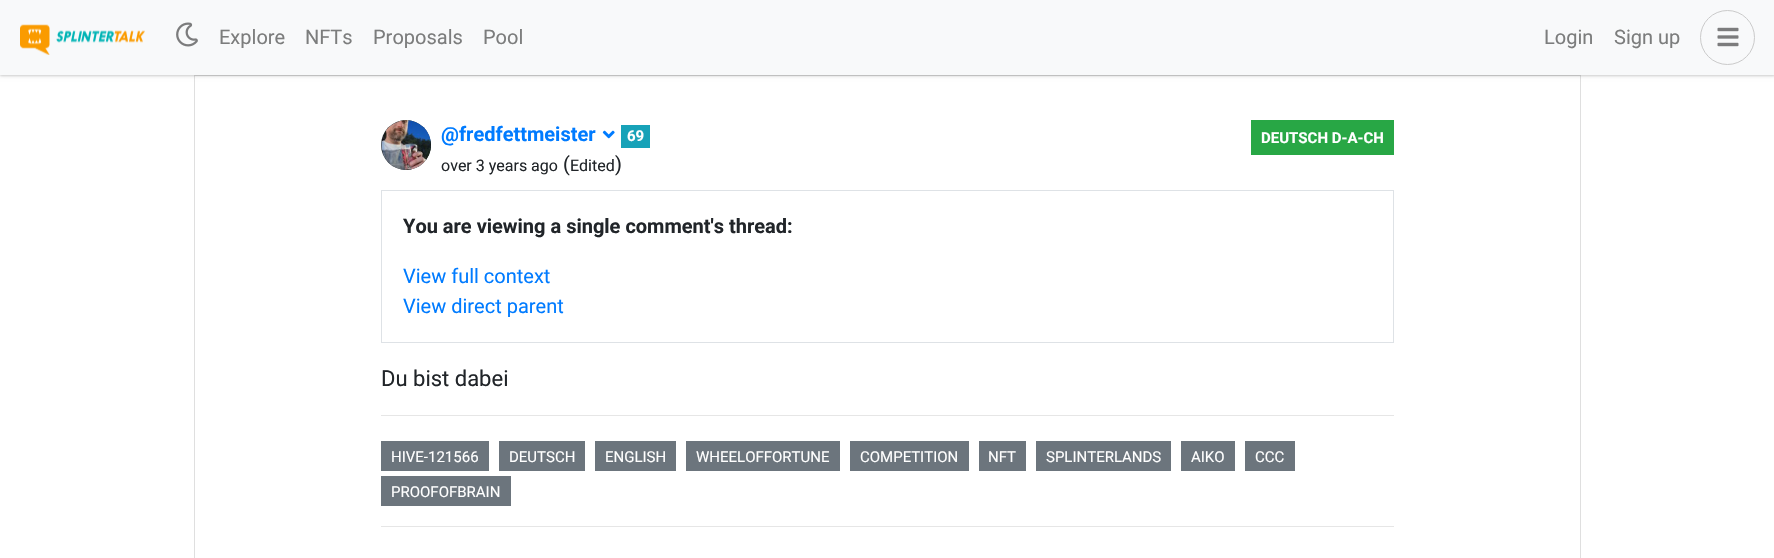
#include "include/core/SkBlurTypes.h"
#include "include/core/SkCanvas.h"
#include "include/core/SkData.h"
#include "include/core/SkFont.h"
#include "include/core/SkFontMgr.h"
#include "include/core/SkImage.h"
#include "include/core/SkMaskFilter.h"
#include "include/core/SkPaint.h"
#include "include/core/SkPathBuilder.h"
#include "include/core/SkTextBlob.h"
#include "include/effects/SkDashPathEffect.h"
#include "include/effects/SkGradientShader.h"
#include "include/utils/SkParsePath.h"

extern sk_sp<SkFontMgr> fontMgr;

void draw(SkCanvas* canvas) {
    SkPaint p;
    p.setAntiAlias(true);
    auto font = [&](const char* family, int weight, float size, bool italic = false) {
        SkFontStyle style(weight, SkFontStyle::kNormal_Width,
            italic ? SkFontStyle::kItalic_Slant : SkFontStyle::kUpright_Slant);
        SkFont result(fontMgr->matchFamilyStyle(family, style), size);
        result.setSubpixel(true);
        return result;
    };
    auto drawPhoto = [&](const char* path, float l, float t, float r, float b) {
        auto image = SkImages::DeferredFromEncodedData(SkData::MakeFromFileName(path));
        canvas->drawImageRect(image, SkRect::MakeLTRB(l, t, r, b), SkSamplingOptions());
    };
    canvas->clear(0xFFFFFFFF);
    p.setStyle(SkPaint::kStroke_Style);
    p.setStrokeWidth(1);
    p.setColor(0xFFDFDFDF);
    canvas->drawRect(SkRect::MakeLTRB(194.5f, 75.5f, 1580.5f, 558.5f), p);
    p.setStyle(SkPaint::kFill_Style);
    p.setColor(0x24000000);
    p.setMaskFilter(SkMaskFilter::MakeBlur(kNormal_SkBlurStyle, 1));
    canvas->drawRect(SkRect::MakeLTRB(0, 1, 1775, 76), p);
    p.setMaskFilter(nullptr);
    p.setColor(0x12000000);
    p.setMaskFilter(SkMaskFilter::MakeBlur(kNormal_SkBlurStyle, 2));
    canvas->drawRect(SkRect::MakeLTRB(0, 1, 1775, 76), p);
    p.setMaskFilter(nullptr);
    p.setColor(0xFFF8F9FA);
    canvas->drawRect(SkRect::MakeLTRB(0, 0, 1774, 75), p);
    drawPhoto("media/1.png", 20, 24, 145, 55);
    drawPhoto("media/2.png", 176, 22, 198, 47);
    auto font1 = font("Roboto", 400, 20);
    p.setColor(0xFF7C7D7D);
    {
        const struct { const char* s; float x, y; } items[] = {
            {"Explore", 219, 44},
            {"NFTs", 305, 44},
            {"Proposals", 373, 44},
            {"Pool", 483, 44},
            {"Login", 1544, 44},
            {"Sign up", 1614, 44},
        };
        for (auto [s, x, y] : items) {
            canvas->drawString(s, x, y, font1, p);
        }
    }
    p.setStyle(SkPaint::kStroke_Style);
    p.setColor(0xFFCACACA);
    canvas->drawCircle(1727.5f, 37.5f, 27, p);
    drawPhoto("media/3.png", 1717, 27, 1739, 47);
    p.setStyle(SkPaint::kFill_Style);
    p.setColor(0xFF343A40);
    canvas->drawCircle(406, 145, 25, p);
    drawPhoto("media/4.png", 381, 120, 431, 170);
    auto font2 = font("Roboto", 700, 20);
    p.setColor(0xFF007BFF);
    canvas->drawString("@fredfettmeister", 441, 141, font2, p);
    drawPhoto("media/5.png", 602, 130, 615, 139);
    p.setColor(0xFF17A2B8);
    canvas->drawRect(SkRect::MakeLTRB(621, 125, 650, 148), p);
    auto font3 = font("Roboto", 700, 15);
    p.setColor(0xFFFFFFFF);
    canvas->drawString("69", 627, 141, font3, p);
    auto font4 = font("Roboto", 400, 16);
    p.setColor(0xFF212529);
    canvas->drawString("over 3 years ago", 441, 171, font4, p);
    canvas->drawString("(", 563, 171, font1, p);
    canvas->drawString("Edited", 570, 171, font4, p);
    canvas->drawString(")", 615, 171, font1, p);
    p.setColor(0xFF28A745);
    canvas->drawRect(SkRect::MakeLTRB(1251, 120, 1394, 155), p);
    p.setColor(0xFFFFFFFF);
    canvas->drawString("DEUTSCH D-A-CH", 1261, 143, font3, p);
    p.setStyle(SkPaint::kStroke_Style);
    p.setColor(0xFFDEE2E6);
    canvas->drawRect(SkRect::MakeLTRB(381.5f, 190.5f, 1393.5f, 342.5f), p);
    p.setStyle(SkPaint::kFill_Style);
    p.setColor(0xFF212529);
    canvas->drawString("You are viewing a single comment's thread:", 403, 233, font2, p);
    p.setColor(0xFF007BFF);
    canvas->drawString("View full context", 403, 283, font1, p);
    canvas->drawString("View direct parent", 403, 313, font1, p);
    auto font5 = font("Roboto", 400, 22);
    p.setColor(0xFF212529);
    canvas->drawString("Du bist dabei", 381, 386, font5, p);
    p.setColor(0xFFE6E6E6);
    canvas->drawRect(SkRect::MakeLTRB(381, 415, 1394, 416), p);
    p.setColor(0xFF6C757D);
    canvas->drawRect(SkRect::MakeLTRB(381, 441, 489, 471), p);
    auto font6 = font("Roboto", 400, 15);
    p.setColor(0xFFFFFFFF);
    canvas->drawString("HIVE-121566", 391, 462, font6, p);
    p.setColor(0xFF6C757D);
    canvas->drawRect(SkRect::MakeLTRB(499, 441, 585, 471), p);
    p.setColor(0xFFFFFFFF);
    canvas->drawString("DEUTSCH", 509, 462, font6, p);
    p.setColor(0xFF6C757D);
    canvas->drawRect(SkRect::MakeLTRB(595, 441, 676, 471), p);
    p.setColor(0xFFFFFFFF);
    canvas->drawString("ENGLISH", 605, 462, font6, p);
    p.setColor(0xFF6C757D);
    canvas->drawRect(SkRect::MakeLTRB(686, 441, 840, 471), p);
    p.setColor(0xFFFFFFFF);
    canvas->drawString("WHEELOFFORTUNE", 696, 462, font6, p);
    p.setColor(0xFF6C757D);
    canvas->drawRect(SkRect::MakeLTRB(850, 441, 969, 471), p);
    p.setColor(0xFFFFFFFF);
    canvas->drawString("COMPETITION", 860, 462, font6, p);
    p.setColor(0xFF6C757D);
    canvas->drawRect(SkRect::MakeLTRB(979, 441, 1026, 471), p);
    p.setColor(0xFFFFFFFF);
    canvas->drawString("NFT", 988, 462, font6, p);
    p.setColor(0xFF6C757D);
    canvas->drawRect(SkRect::MakeLTRB(1036, 441, 1171, 471), p);
    p.setColor(0xFFFFFFFF);
    canvas->drawString("SPLINTERLANDS", 1046, 462, font6, p);
    p.setColor(0xFF6C757D);
    canvas->drawRect(SkRect::MakeLTRB(1181, 441, 1235, 471), p);
    p.setColor(0xFFFFFFFF);
    canvas->drawString("AIKO", 1191, 462, font6, p);
    p.setColor(0xFF6C757D);
    canvas->drawRect(SkRect::MakeLTRB(1245, 441, 1295, 471), p);
    p.setColor(0xFFFFFFFF);
    canvas->drawString("CCC", 1255, 462, font6, p);
    p.setColor(0xFF6C757D);
    canvas->drawRect(SkRect::MakeLTRB(381, 476, 511, 506), p);
    p.setColor(0xFFFFFFFF);
    canvas->drawString("PROOFOFBRAIN", 391, 497, font6, p);
    p.setColor(0xFFE6E6E6);
    canvas->drawRect(SkRect::MakeLTRB(381, 526, 1394, 527), p);
}
